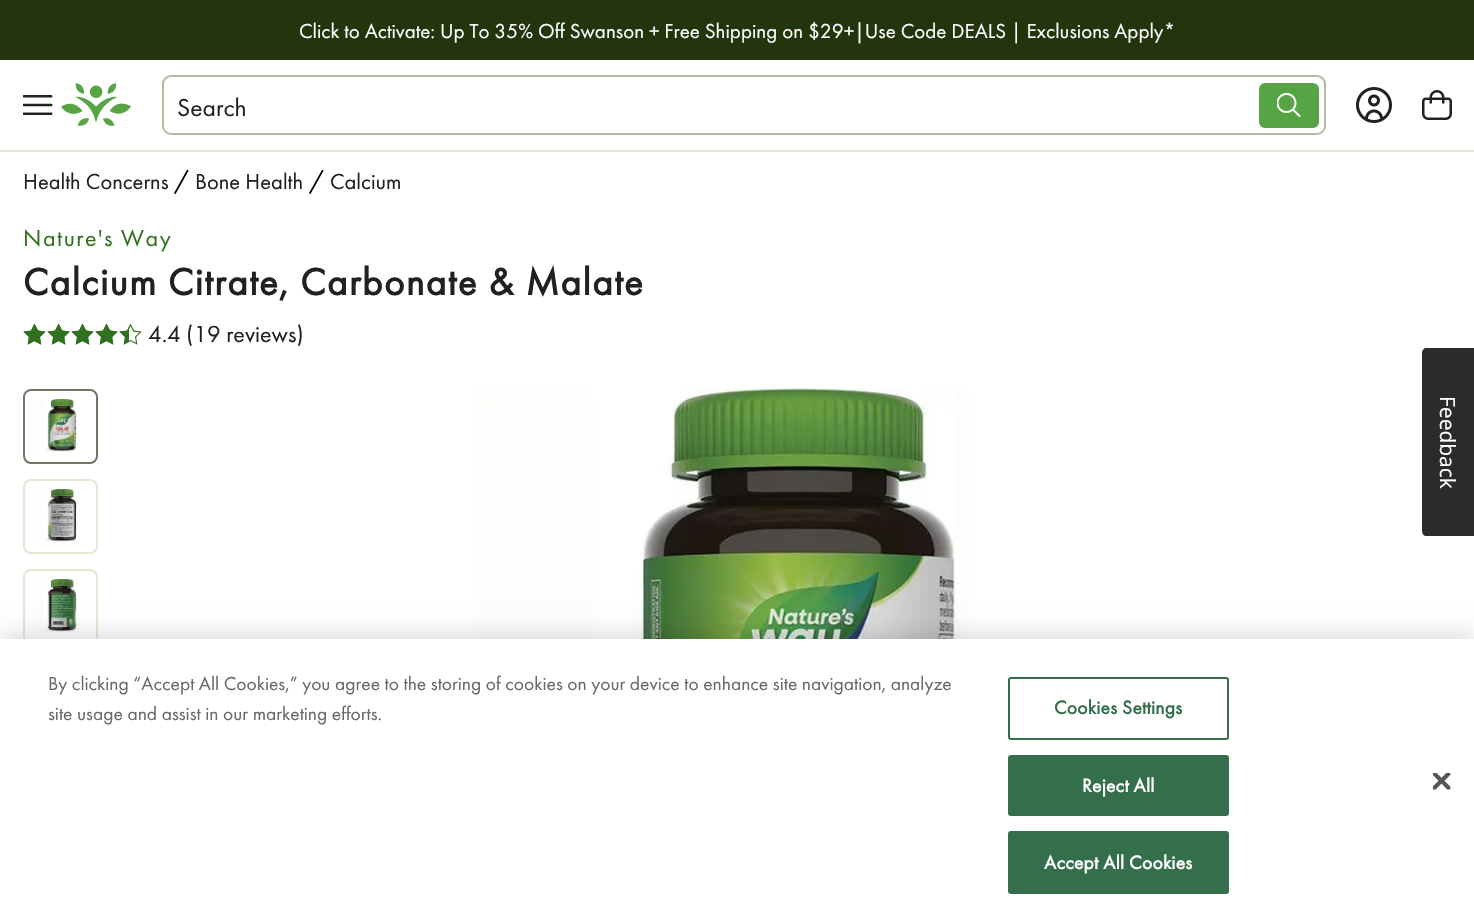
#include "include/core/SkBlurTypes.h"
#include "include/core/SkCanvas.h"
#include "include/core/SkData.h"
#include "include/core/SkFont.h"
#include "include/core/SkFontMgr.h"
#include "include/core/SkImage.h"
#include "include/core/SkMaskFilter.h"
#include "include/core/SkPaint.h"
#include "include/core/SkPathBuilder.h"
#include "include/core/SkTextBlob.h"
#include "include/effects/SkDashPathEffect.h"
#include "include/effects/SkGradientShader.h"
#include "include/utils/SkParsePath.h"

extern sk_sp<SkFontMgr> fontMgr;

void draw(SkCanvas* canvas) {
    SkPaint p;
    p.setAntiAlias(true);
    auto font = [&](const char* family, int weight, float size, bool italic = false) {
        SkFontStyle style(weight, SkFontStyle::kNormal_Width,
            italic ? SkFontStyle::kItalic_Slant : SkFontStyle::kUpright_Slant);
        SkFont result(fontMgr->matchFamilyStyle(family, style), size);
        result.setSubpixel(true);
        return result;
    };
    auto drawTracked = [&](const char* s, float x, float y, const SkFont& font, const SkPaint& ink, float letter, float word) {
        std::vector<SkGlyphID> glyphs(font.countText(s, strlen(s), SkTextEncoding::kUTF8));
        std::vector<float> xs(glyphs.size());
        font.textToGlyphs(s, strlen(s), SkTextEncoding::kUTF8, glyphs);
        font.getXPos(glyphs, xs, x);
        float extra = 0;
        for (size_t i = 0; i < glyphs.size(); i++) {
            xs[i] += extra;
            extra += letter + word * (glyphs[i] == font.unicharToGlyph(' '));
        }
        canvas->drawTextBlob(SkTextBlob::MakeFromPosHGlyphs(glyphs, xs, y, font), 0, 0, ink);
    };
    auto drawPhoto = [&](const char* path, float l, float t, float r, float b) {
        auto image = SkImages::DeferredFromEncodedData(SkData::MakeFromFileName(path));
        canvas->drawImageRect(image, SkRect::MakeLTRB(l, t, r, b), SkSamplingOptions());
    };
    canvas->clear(0xFFFFFFFF);
    p.setColor(0xFFE3E8D4);
    canvas->drawRect(SkRect::MakeLTRB(0, 150, 1474, 152), p);
    p.setColor(0xFF23350D);
    canvas->drawRect(SkRect::MakeLTRB(0, 0, 1474, 60), p);
    auto font1 = font("Futura PT", 400, 21);
    p.setColor(0xFFFFFFFF);
    canvas->drawString("Click to Activate: Up To 35% Off Swanson + Free Shipping on $29+|Use Code DEALS | Exclusions Apply*", 299, 38, font1, p);
    drawPhoto("media/1.png", 23, 95, 53, 115);
    drawPhoto("media/2.png", 61, 83, 131, 126);
    p.setStyle(SkPaint::kStroke_Style);
    p.setStrokeWidth(2);
    p.setColor(0xFFB4BAA2);
    canvas->drawRoundRect(SkRect::MakeLTRB(163, 76, 1325, 134), 8, 8, p);
    auto font2 = font("Futura PT", 400, 25.5f);
    p.setStyle(SkPaint::kFill_Style);
    p.setColor(0xFF212121);
    canvas->drawString("Search", 177, 116, font2, p);
    p.setColor(0xFF57A445);
    canvas->drawRoundRect(SkRect::MakeLTRB(1259, 83, 1319, 128), 6, 6, p);
    drawPhoto("media/3.png", 1277, 93, 1301, 117);
    drawPhoto("media/4.png", 1356, 87, 1392, 123);
    drawPhoto("media/5.png", 1422, 90, 1452, 120);
    auto font3 = font("Futura PT", 400, 22.5f);
    p.setColor(0xFF212121);
    canvas->drawString("Health Concerns", 23, 189, font3, p);
    p.setColor(0xFF000000);
    canvas->drawString("/", 174, 189, font2, p);
    p.setColor(0xFF212121);
    canvas->drawString("Bone Health", 195, 189, font3, p);
    p.setColor(0xFF000000);
    canvas->drawString("/", 309, 189, font2, p);
    p.setColor(0xFF212121);
    canvas->drawString("Calcium", 330, 189, font3, p);
    auto font4 = font("Futura PT", 400, 24);
    p.setColor(0xFF2F711C);
    drawTracked("Nature's Way", 23, 246, font4, p, 1.5f, 0);
    auto font5 = font("Futura PT", 700, 39);
    p.setColor(0xFF212121);
    drawTracked("Calcium Citrate, Carbonate & Malate", 23, 295, font5, p, 1.5f, 0);
    drawPhoto("media/6.png", 23, 323, 142, 345);
    canvas->drawString("4.4 (19 reviews)", 148, 342, font4, p);
    p.setStyle(SkPaint::kStroke_Style);
    p.setColor(0xFF717663);
    canvas->drawRoundRect(SkRect::MakeLTRB(24, 390, 97, 463), 7, 7, p);
    drawPhoto("media/7.png", 34, 399, 79, 452);
    p.setColor(0xFFE3E8D4);
    canvas->drawRoundRect(SkRect::MakeLTRB(24, 480, 97, 553), 7, 7, p);
    drawPhoto("media/8.png", 34, 489, 80, 542);
    canvas->drawRoundRect(SkRect::MakeLTRB(24, 570, 97, 643), 7, 7, p);
    drawPhoto("media/9.png", 34, 579, 79, 632);
    drawPhoto("media/10.png", 478, 388, 969, 639);
    p.setStyle(SkPaint::kFill_Style);
    p.setColor(0xFF2B2B2B);
    canvas->drawPath(SkPathBuilder().moveTo(1474, 348).lineTo(1474, 536).lineTo(1426, 536).cubicTo(1424, 536, 1422, 534, 1422, 531).lineTo(1422, 353).cubicTo(1422, 350, 1424, 348, 1426, 348).close().detach(), p);
    auto font6 = font("Open Sans", 400, 21);
    p.setColor(0xFFFFFFFF);
    canvas->save();
    canvas->rotate(90, 1440, 396);
    canvas->drawString("Feedback", 1440, 396, font6, p);
    canvas->restore();
    p.setColor(0x33000000);
    p.setMaskFilter(SkMaskFilter::MakeBlur(kNormal_SkBlurStyle, 13.5f));
    canvas->drawRect(SkRect::MakeLTRB(0, 639, 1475, 924), p);
    p.setMaskFilter(nullptr);
    p.setColor(0xFFFFFFFF);
    canvas->drawRect(SkRect::MakeLTRB(0, 639, 1474, 924), p);
    auto font7 = font("Futura PT", 400, 19.5f);
    p.setColor(0xFF696969);
    canvas->drawString("By clicking “Accept All Cookies,” you agree to the storing of cookies on your device to enhance site navigation, analyze", 48, 690, font7, p);
    canvas->drawString("site usage and assist in our marketing efforts.", 48, 720, font7, p);
    p.setStyle(SkPaint::kStroke_Style);
    p.setColor(0xFF346E4A);
    canvas->drawRoundRect(SkRect::MakeLTRB(1009, 678, 1228, 739), 2, 2, p);
    auto font8 = font("Futura PT", 700, 19.5f);
    p.setStyle(SkPaint::kFill_Style);
    drawTracked("Cookies Settings", 1054, 714, font8, p, 0.25f, 0);
    canvas->drawRoundRect(SkRect::MakeLTRB(1009, 756, 1228, 815), 2, 2, p);
    p.setStyle(SkPaint::kStroke_Style);
    canvas->drawRoundRect(SkRect::MakeLTRB(1009, 756, 1228, 815), 2, 2, p);
    p.setStyle(SkPaint::kFill_Style);
    p.setColor(0xFFFFFFFF);
    drawTracked("Reject All", 1082, 792, font8, p, 0.25f, 0);
    p.setColor(0xFF346E4A);
    canvas->drawRoundRect(SkRect::MakeLTRB(1009, 832, 1228, 893), 2, 2, p);
    p.setStyle(SkPaint::kStroke_Style);
    canvas->drawRoundRect(SkRect::MakeLTRB(1009, 832, 1228, 893), 2, 2, p);
    p.setStyle(SkPaint::kFill_Style);
    p.setColor(0xFFFFFFFF);
    drawTracked("Accept All Cookies", 1044, 869, font8, p, 0.25f, 0);
    drawPhoto("media/11.png", 1433, 773, 1451, 790);
}
